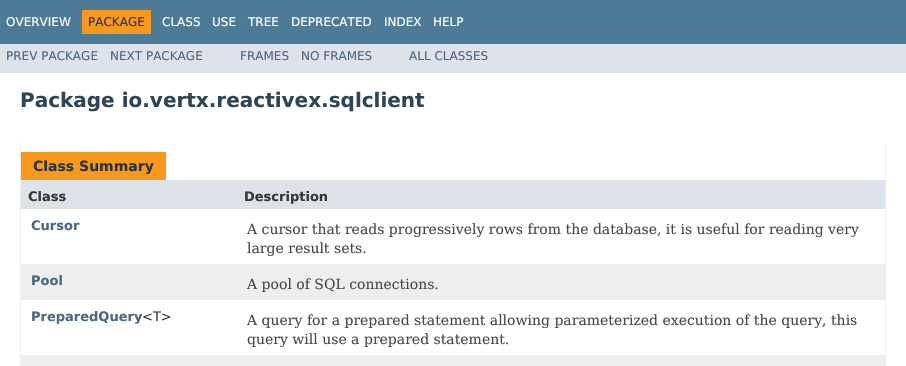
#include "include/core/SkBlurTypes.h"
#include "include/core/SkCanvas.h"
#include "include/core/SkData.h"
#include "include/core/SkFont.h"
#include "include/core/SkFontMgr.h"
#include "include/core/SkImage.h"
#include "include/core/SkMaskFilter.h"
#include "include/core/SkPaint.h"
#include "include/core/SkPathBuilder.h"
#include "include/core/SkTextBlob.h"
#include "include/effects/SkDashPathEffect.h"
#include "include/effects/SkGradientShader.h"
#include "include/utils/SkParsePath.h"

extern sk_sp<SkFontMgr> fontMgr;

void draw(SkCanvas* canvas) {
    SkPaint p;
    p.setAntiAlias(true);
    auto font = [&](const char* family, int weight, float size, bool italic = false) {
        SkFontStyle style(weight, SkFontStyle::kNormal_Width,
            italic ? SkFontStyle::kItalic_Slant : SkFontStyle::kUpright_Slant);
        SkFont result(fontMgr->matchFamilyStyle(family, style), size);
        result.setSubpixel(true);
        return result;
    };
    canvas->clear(0xFFFFFFFF);
    p.setColor(0xFF4D7A97);
    canvas->drawRect(SkRect::MakeLTRB(0, 0, 906, 44), p);
    auto font1 = font("DejaVu Sans", 400, 12);
    p.setColor(0xFFFFFFFF);
    canvas->drawString("OVERVIEW", 6, 26, font1, p);
    p.setColor(0xFFF8981D);
    canvas->drawRect(SkRect::MakeLTRB(82, 10, 151, 34), p);
    p.setColor(0xFF253441);
    canvas->drawString("PACKAGE", 88, 26, font1, p);
    p.setColor(0xFFFFFFFF);
    {
        const struct { const char* s; float x, y; } items[] = {
            {"CLASS", 162, 26},
            {"USE", 212, 26},
            {"TREE", 248, 26},
            {"DEPRECATED", 291, 26},
            {"INDEX", 384, 26},
            {"HELP", 433, 26},
        };
        for (auto [s, x, y] : items) {
            canvas->drawString(s, x, y, font1, p);
        }
    }
    p.setColor(0xFFDEE3E9);
    canvas->drawRect(SkRect::MakeLTRB(0, 44, 906, 73), p);
    p.setColor(0xFF4A6782);
    {
        const struct { const char* s; float x, y; } items[] = {
            {"PREV PACKAGE", 6, 60},
            {"NEXT PACKAGE", 110, 60},
            {"FRAMES", 240, 60},
            {"NO FRAMES", 301, 60},
            {"ALL CLASSES", 409, 60},
        };
        for (auto [s, x, y] : items) {
            canvas->drawString(s, x, y, font1, p);
        }
    }
    auto font2 = font("DejaVu Sans", 700, 20);
    p.setColor(0xFF2C4557);
    canvas->drawString("Package io.vertx.reactivex.sqlclient", 20, 107, font2, p);
    {
        const struct { float l, t, r, b; SkColor color; } items[] = {
            {885, 142, 886, 366, 0xFFEEEEEE},
            {20, 142, 21, 366, 0xFFEEEEEE},
            {21, 152, 166, 180, 0xFFF8981D},
        };
        for (auto [l, t, r, b, color] : items) {
            p.setColor(color);
            canvas->drawRect(SkRect::MakeLTRB(l, t, r, b), p);
        }
    }
    auto font3 = font("DejaVu Sans", 700, 14);
    p.setColor(0xFF253441);
    canvas->drawString("Class Summary", 33, 171, font3, p);
    p.setColor(0xFFDEE3E9);
    canvas->drawRect(SkRect::MakeLTRB(21, 180, 885, 209), p);
    auto font4 = font("DejaVu Sans", 700, 13);
    p.setColor(0xFF353833);
    canvas->drawString("Class", 28, 201, font4, p);
    canvas->drawString("Description", 244, 201, font4, p);
    p.setColor(0xFF4A6782);
    canvas->drawString("Cursor", 31, 230, font4, p);
    auto font5 = font("DejaVu Serif", 400, 14);
    p.setColor(0xFF474747);
    canvas->drawString("A cursor that reads progressively rows from the database, it is useful for reading very", 247, 234, font5, p);
    canvas->drawString("large result sets.", 247, 253, font5, p);
    p.setColor(0xFFEEEEEF);
    canvas->drawRect(SkRect::MakeLTRB(21, 264, 885, 300), p);
    p.setColor(0xFF4A6782);
    canvas->drawString("Pool", 31, 285, font4, p);
    p.setColor(0xFF474747);
    canvas->drawString("A pool of SQL connections.", 247, 289, font5, p);
    p.setColor(0xFF4A6782);
    canvas->drawString("PreparedQuery", 31, 321, font4, p);
    auto font6 = font("DejaVu Sans", 400, 13);
    p.setColor(0xFF353833);
    canvas->drawString("<T>", 142, 321, font6, p);
    p.setColor(0xFF474747);
    canvas->drawString("A query for a prepared statement allowing parameterized execution of the query, this", 247, 325, font5, p);
    canvas->drawString("query will use a prepared statement.", 247, 344, font5, p);
    p.setColor(0xFFEEEEEF);
    canvas->drawRect(SkRect::MakeLTRB(21, 355, 885, 366), p);
}
